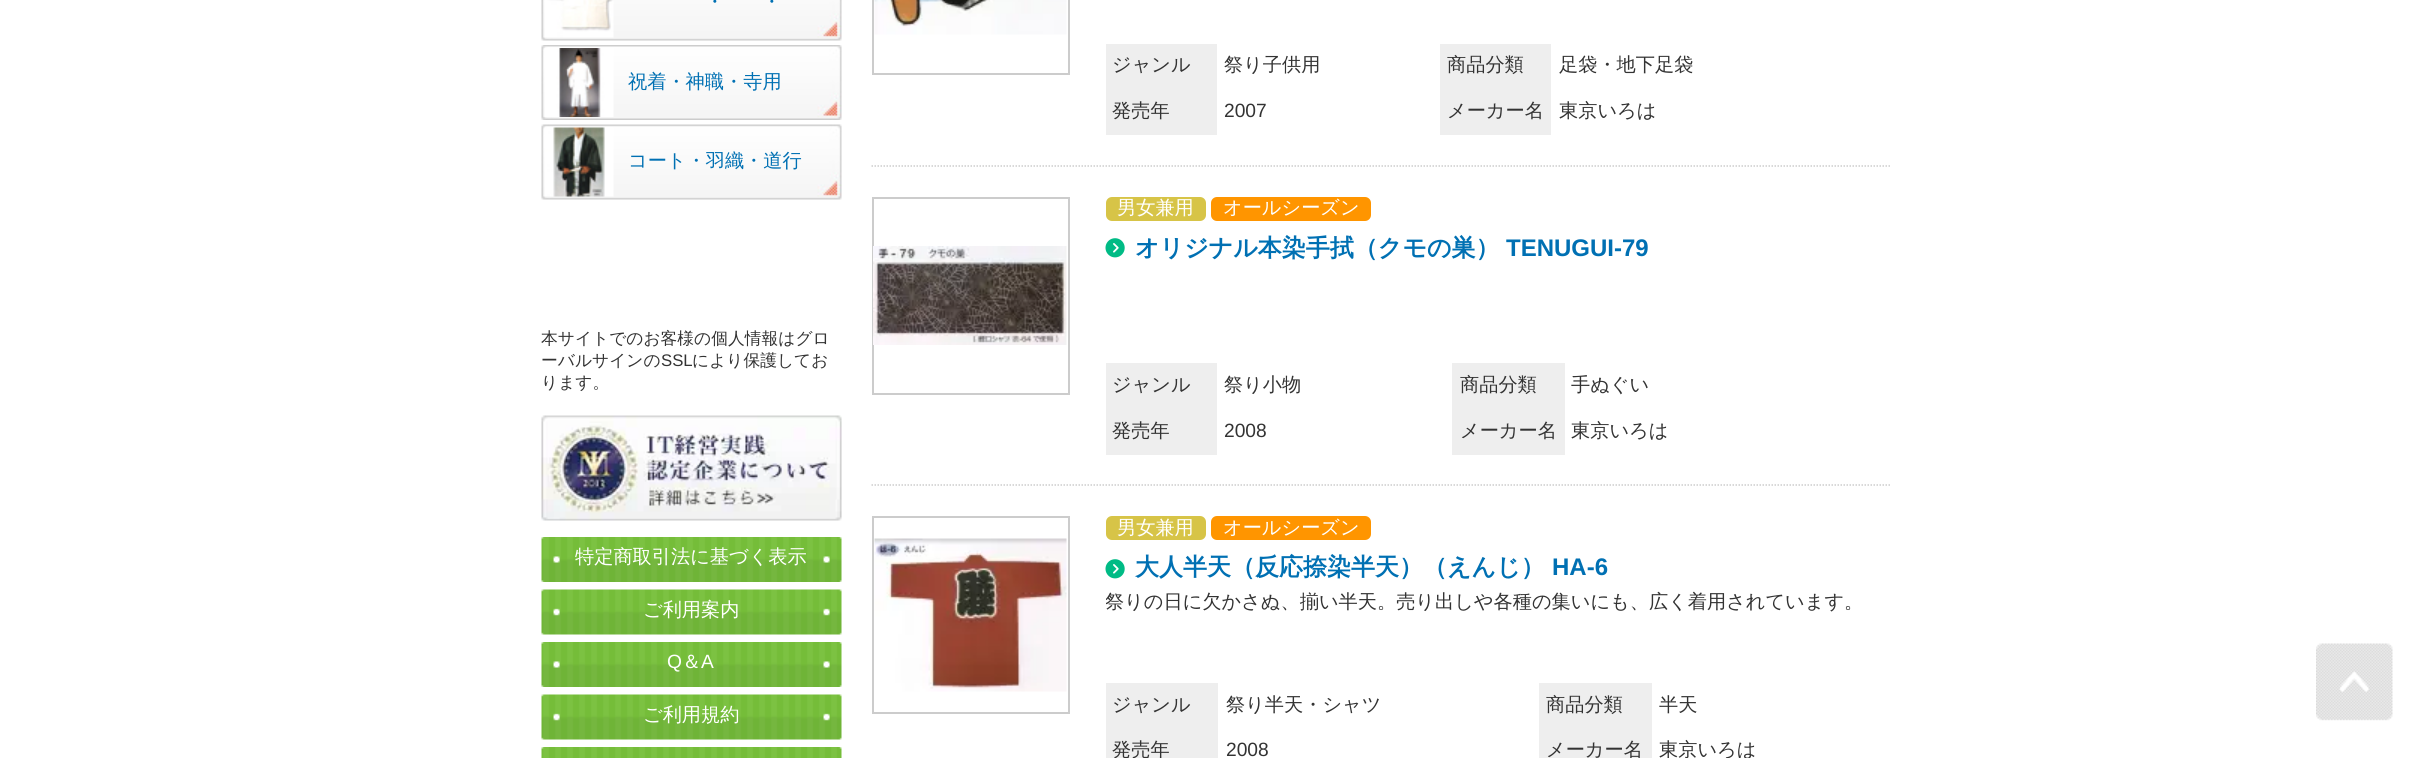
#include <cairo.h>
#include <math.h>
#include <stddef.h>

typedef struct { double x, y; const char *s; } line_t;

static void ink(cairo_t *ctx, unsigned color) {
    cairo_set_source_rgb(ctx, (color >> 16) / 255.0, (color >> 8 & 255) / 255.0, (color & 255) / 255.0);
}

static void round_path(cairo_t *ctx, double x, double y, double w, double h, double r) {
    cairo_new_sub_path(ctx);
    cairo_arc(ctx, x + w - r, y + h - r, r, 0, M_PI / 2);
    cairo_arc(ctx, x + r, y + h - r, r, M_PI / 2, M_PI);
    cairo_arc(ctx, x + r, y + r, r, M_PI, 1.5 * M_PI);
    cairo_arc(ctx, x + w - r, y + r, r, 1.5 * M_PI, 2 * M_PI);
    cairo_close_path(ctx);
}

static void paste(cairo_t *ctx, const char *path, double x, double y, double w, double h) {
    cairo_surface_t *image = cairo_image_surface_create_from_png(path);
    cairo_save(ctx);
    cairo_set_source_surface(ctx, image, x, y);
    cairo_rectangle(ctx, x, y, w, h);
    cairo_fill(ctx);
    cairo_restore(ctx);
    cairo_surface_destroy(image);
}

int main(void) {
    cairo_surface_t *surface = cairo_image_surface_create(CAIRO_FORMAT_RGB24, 2431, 758);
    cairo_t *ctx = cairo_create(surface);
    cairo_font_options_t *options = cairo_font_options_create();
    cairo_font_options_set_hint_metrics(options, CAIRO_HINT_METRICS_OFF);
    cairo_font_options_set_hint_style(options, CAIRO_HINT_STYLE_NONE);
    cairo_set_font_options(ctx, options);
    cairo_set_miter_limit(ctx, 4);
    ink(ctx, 0xFFFFFF);
    cairo_paint(ctx);
    paste(ctx, "media/1.png", 541, 0, 301, 41);
    paste(ctx, "media/2.png", 544, 0, 70, 38);
    cairo_select_font_face(ctx, "WenQuanYi Zen Hei Medium", CAIRO_FONT_SLANT_NORMAL, CAIRO_FONT_WEIGHT_NORMAL);
    cairo_set_font_size(ctx, 19.2);
    ink(ctx, 0x0070B3);
    cairo_move_to(ctx, 705, 8);
    cairo_show_text(ctx, "・");
    cairo_move_to(ctx, 762, 8);
    cairo_show_text(ctx, "・");
    paste(ctx, "media/3.png", 541, 45, 301, 75);
    paste(ctx, "media/4.png", 544, 48, 70, 69);
    cairo_move_to(ctx, 628, 88);
    cairo_show_text(ctx, "祝着・神職・寺用");
    paste(ctx, "media/5.png", 541, 124, 301, 76);
    paste(ctx, "media/6.png", 544, 127, 70, 70);
    cairo_move_to(ctx, 628, 167);
    cairo_show_text(ctx, "コート・羽織・道行");
    cairo_set_font_size(ctx, 16.75);
    ink(ctx, 0x333333);
    cairo_move_to(ctx, 541, 344);
    cairo_show_text(ctx, "本サイトでのお客様の個人情報はグロ");
    cairo_move_to(ctx, 541, 366);
    cairo_show_text(ctx, "ーバルサインの");
    cairo_select_font_face(ctx, "Liberation Sans", CAIRO_FONT_SLANT_NORMAL, CAIRO_FONT_WEIGHT_NORMAL);
    cairo_move_to(ctx, 661, 366);
    cairo_show_text(ctx, "SSL");
    cairo_select_font_face(ctx, "WenQuanYi Zen Hei Medium", CAIRO_FONT_SLANT_NORMAL, CAIRO_FONT_WEIGHT_NORMAL);
    cairo_move_to(ctx, 692, 366);
    cairo_show_text(ctx, "により保護してお");
    cairo_move_to(ctx, 541, 388);
    cairo_show_text(ctx, "ります。");
    paste(ctx, "media/7.png", 541, 415, 301, 106);
    paste(ctx, "media/8.png", 541, 537, 301, 45);
    cairo_set_font_size(ctx, 19.2);
    ink(ctx, 0xFFFFFF);
    cairo_move_to(ctx, 575, 563);
    cairo_show_text(ctx, "特定商取引法に基づく表示");
    paste(ctx, "media/9.png", 541, 589, 301, 46);
    cairo_move_to(ctx, 643, 616);
    cairo_show_text(ctx, "ご利用案内");
    paste(ctx, "media/8.png", 541, 642, 301, 45);
    cairo_select_font_face(ctx, "Liberation Sans", CAIRO_FONT_SLANT_NORMAL, CAIRO_FONT_WEIGHT_NORMAL);
    cairo_move_to(ctx, 667, 668);
    cairo_show_text(ctx, "Q");
    cairo_select_font_face(ctx, "WenQuanYi Zen Hei Medium", CAIRO_FONT_SLANT_NORMAL, CAIRO_FONT_WEIGHT_NORMAL);
    cairo_move_to(ctx, 682, 668);
    cairo_show_text(ctx, "＆");
    cairo_select_font_face(ctx, "Liberation Sans", CAIRO_FONT_SLANT_NORMAL, CAIRO_FONT_WEIGHT_NORMAL);
    cairo_move_to(ctx, 701, 668);
    cairo_show_text(ctx, "A");
    paste(ctx, "media/9.png", 541, 694, 301, 46);
    cairo_select_font_face(ctx, "WenQuanYi Zen Hei Medium", CAIRO_FONT_SLANT_NORMAL, CAIRO_FONT_WEIGHT_NORMAL);
    cairo_move_to(ctx, 643, 721);
    cairo_show_text(ctx, "ご利用規約");
    paste(ctx, "media/10.png", 541, 747, 301, 11);
    cairo_rectangle(ctx, 873, -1, 196, 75);
    ink(ctx, 0xCCCCCC);
    cairo_stroke(ctx);
    paste(ctx, "media/11.png", 874, 0, 193, 35);
    ink(ctx, 0xEEEEEE);
    cairo_rectangle(ctx, 1106, 44, 111, 91);
    cairo_fill(ctx);
    ink(ctx, 0x333333);
    cairo_move_to(ctx, 1112, 71);
    cairo_show_text(ctx, "ジャンル");
    cairo_move_to(ctx, 1224, 71);
    cairo_show_text(ctx, "祭り子供用");
    ink(ctx, 0xEEEEEE);
    cairo_rectangle(ctx, 1440, 44, 111, 91);
    cairo_fill(ctx);
    ink(ctx, 0x333333);
    {
        static const line_t items[] = {
            {1447, 71, "商品分類"},
            {1559, 71, "足袋・地下足袋"},
            {1112, 117, "発売年"},
        };
        for (size_t i = 0; i < sizeof items / sizeof *items; i++) {
            cairo_move_to(ctx, items[i].x, items[i].y);
            cairo_show_text(ctx, items[i].s);
        }
    }
    cairo_select_font_face(ctx, "Liberation Sans", CAIRO_FONT_SLANT_NORMAL, CAIRO_FONT_WEIGHT_NORMAL);
    cairo_move_to(ctx, 1224, 117);
    cairo_show_text(ctx, "2007");
    cairo_select_font_face(ctx, "WenQuanYi Zen Hei Medium", CAIRO_FONT_SLANT_NORMAL, CAIRO_FONT_WEIGHT_NORMAL);
    cairo_move_to(ctx, 1447, 117);
    cairo_show_text(ctx, "メーカー名");
    cairo_move_to(ctx, 1559, 117);
    cairo_show_text(ctx, "東京いろは");
    cairo_new_path(ctx);
    cairo_move_to(ctx, 871.5, 166);
    cairo_line_to(ctx, 1891.5, 166);
    ink(ctx, 0xCCCCCC);
    cairo_set_line_width(ctx, 1.5);
    cairo_set_dash(ctx, (double[]){1.5, 1.5}, 2, 0);
    cairo_stroke(ctx);
    cairo_rectangle(ctx, 873, 198, 196, 196);
    cairo_set_line_width(ctx, 2);
    cairo_set_dash(ctx, NULL, 0, 0);
    cairo_stroke(ctx);
    paste(ctx, "media/12.png", 873, 246, 194, 99);
    ink(ctx, 0xD7C447);
    round_path(ctx, 1106, 197, 100, 24, 6);
    cairo_fill(ctx);
    ink(ctx, 0xFFFFFF);
    cairo_move_to(ctx, 1117, 214);
    cairo_show_text(ctx, "男女兼用");
    ink(ctx, 0xFF9500);
    round_path(ctx, 1211, 197, 160, 24, 6);
    cairo_fill(ctx);
    ink(ctx, 0xFFFFFF);
    cairo_move_to(ctx, 1223, 214);
    cairo_show_text(ctx, "オールシーズン");
    paste(ctx, "media/13.png", 1105, 238, 20, 20);
    cairo_select_font_face(ctx, "WenQuanYi Zen Hei", CAIRO_FONT_SLANT_NORMAL, CAIRO_FONT_WEIGHT_BOLD);
    cairo_set_font_size(ctx, 24);
    ink(ctx, 0x0070B3);
    cairo_move_to(ctx, 1135, 256);
    cairo_show_text(ctx, "オリジナル本染手拭（クモの巣）");
    cairo_select_font_face(ctx, "Liberation Sans", CAIRO_FONT_SLANT_NORMAL, CAIRO_FONT_WEIGHT_BOLD);
    cairo_move_to(ctx, 1506, 256);
    cairo_show_text(ctx, "TENUGUI-79");
    ink(ctx, 0xEEEEEE);
    cairo_rectangle(ctx, 1106, 363, 111, 92);
    cairo_fill(ctx);
    cairo_select_font_face(ctx, "WenQuanYi Zen Hei Medium", CAIRO_FONT_SLANT_NORMAL, CAIRO_FONT_WEIGHT_NORMAL);
    cairo_set_font_size(ctx, 19.2);
    ink(ctx, 0x333333);
    cairo_move_to(ctx, 1112, 391);
    cairo_show_text(ctx, "ジャンル");
    cairo_move_to(ctx, 1224, 391);
    cairo_show_text(ctx, "祭り小物");
    ink(ctx, 0xEEEEEE);
    cairo_rectangle(ctx, 1452, 363, 113, 92);
    cairo_fill(ctx);
    ink(ctx, 0x333333);
    {
        static const line_t items[] = {
            {1460, 391, "商品分類"},
            {1571, 391, "手ぬぐい"},
            {1112, 437, "発売年"},
        };
        for (size_t i = 0; i < sizeof items / sizeof *items; i++) {
            cairo_move_to(ctx, items[i].x, items[i].y);
            cairo_show_text(ctx, items[i].s);
        }
    }
    cairo_select_font_face(ctx, "Liberation Sans", CAIRO_FONT_SLANT_NORMAL, CAIRO_FONT_WEIGHT_NORMAL);
    cairo_move_to(ctx, 1224, 437);
    cairo_show_text(ctx, "2008");
    cairo_select_font_face(ctx, "WenQuanYi Zen Hei Medium", CAIRO_FONT_SLANT_NORMAL, CAIRO_FONT_WEIGHT_NORMAL);
    cairo_move_to(ctx, 1460, 437);
    cairo_show_text(ctx, "メーカー名");
    cairo_move_to(ctx, 1571, 437);
    cairo_show_text(ctx, "東京いろは");
    cairo_new_path(ctx);
    cairo_move_to(ctx, 871.5, 485);
    cairo_line_to(ctx, 1891.5, 485);
    ink(ctx, 0xCCCCCC);
    cairo_set_line_width(ctx, 1.5);
    cairo_set_dash(ctx, (double[]){1.5, 1.5}, 2, 0);
    cairo_stroke(ctx);
    cairo_rectangle(ctx, 873, 517, 196, 196);
    cairo_set_line_width(ctx, 2);
    cairo_set_dash(ctx, NULL, 0, 0);
    cairo_stroke(ctx);
    paste(ctx, "media/14.png", 874, 538, 193, 154);
    ink(ctx, 0xD7C447);
    round_path(ctx, 1106, 516, 100, 24, 6);
    cairo_fill(ctx);
    ink(ctx, 0xFFFFFF);
    cairo_move_to(ctx, 1117, 534);
    cairo_show_text(ctx, "男女兼用");
    ink(ctx, 0xFF9500);
    round_path(ctx, 1211, 516, 160, 24, 6);
    cairo_fill(ctx);
    ink(ctx, 0xFFFFFF);
    cairo_move_to(ctx, 1223, 534);
    cairo_show_text(ctx, "オールシーズン");
    paste(ctx, "media/13.png", 1105, 559, 20, 20);
    cairo_select_font_face(ctx, "WenQuanYi Zen Hei", CAIRO_FONT_SLANT_NORMAL, CAIRO_FONT_WEIGHT_BOLD);
    cairo_set_font_size(ctx, 24);
    ink(ctx, 0x0070B3);
    cairo_move_to(ctx, 1135, 575);
    cairo_show_text(ctx, "大人半天（反応捺染半天）（えんじ）");
    cairo_select_font_face(ctx, "Liberation Sans", CAIRO_FONT_SLANT_NORMAL, CAIRO_FONT_WEIGHT_BOLD);
    cairo_move_to(ctx, 1552, 575);
    cairo_show_text(ctx, "HA-6");
    cairo_save(ctx);
    cairo_rectangle(ctx, 1106, 587, 757, 87);
    cairo_clip(ctx);
    cairo_select_font_face(ctx, "WenQuanYi Zen Hei Medium", CAIRO_FONT_SLANT_NORMAL, CAIRO_FONT_WEIGHT_NORMAL);
    cairo_set_font_size(ctx, 19.2);
    ink(ctx, 0x333333);
    cairo_move_to(ctx, 1105, 608);
    cairo_show_text(ctx, "祭りの日に欠かさぬ、揃い半天。売り出しや各種の集いにも、広く着用されています。");
    cairo_restore(ctx);
    ink(ctx, 0xEEEEEE);
    cairo_rectangle(ctx, 1106, 683, 112, 75);
    cairo_fill(ctx);
    cairo_select_font_face(ctx, "WenQuanYi Zen Hei Medium", CAIRO_FONT_SLANT_NORMAL, CAIRO_FONT_WEIGHT_NORMAL);
    cairo_set_font_size(ctx, 19.2);
    ink(ctx, 0x333333);
    cairo_move_to(ctx, 1112, 711);
    cairo_show_text(ctx, "ジャンル");
    cairo_move_to(ctx, 1226, 711);
    cairo_show_text(ctx, "祭り半天・シャツ");
    ink(ctx, 0xEEEEEE);
    cairo_rectangle(ctx, 1539, 683, 113, 75);
    cairo_fill(ctx);
    ink(ctx, 0x333333);
    {
        static const line_t items[] = {
            {1546, 711, "商品分類"},
            {1659, 711, "半天"},
            {1112, 756, "発売年"},
        };
        for (size_t i = 0; i < sizeof items / sizeof *items; i++) {
            cairo_move_to(ctx, items[i].x, items[i].y);
            cairo_show_text(ctx, items[i].s);
        }
    }
    cairo_select_font_face(ctx, "Liberation Sans", CAIRO_FONT_SLANT_NORMAL, CAIRO_FONT_WEIGHT_NORMAL);
    cairo_move_to(ctx, 1226, 756);
    cairo_show_text(ctx, "2008");
    cairo_select_font_face(ctx, "WenQuanYi Zen Hei Medium", CAIRO_FONT_SLANT_NORMAL, CAIRO_FONT_WEIGHT_NORMAL);
    cairo_move_to(ctx, 1546, 756);
    cairo_show_text(ctx, "メーカー名");
    cairo_move_to(ctx, 1659, 756);
    cairo_show_text(ctx, "東京いろは");
    paste(ctx, "media/15.png", 2316, 643, 77, 78);
    cairo_surface_write_to_png(surface, "image.png");
    cairo_font_options_destroy(options);
    cairo_destroy(ctx);
    cairo_surface_destroy(surface);
    return 0;
}
